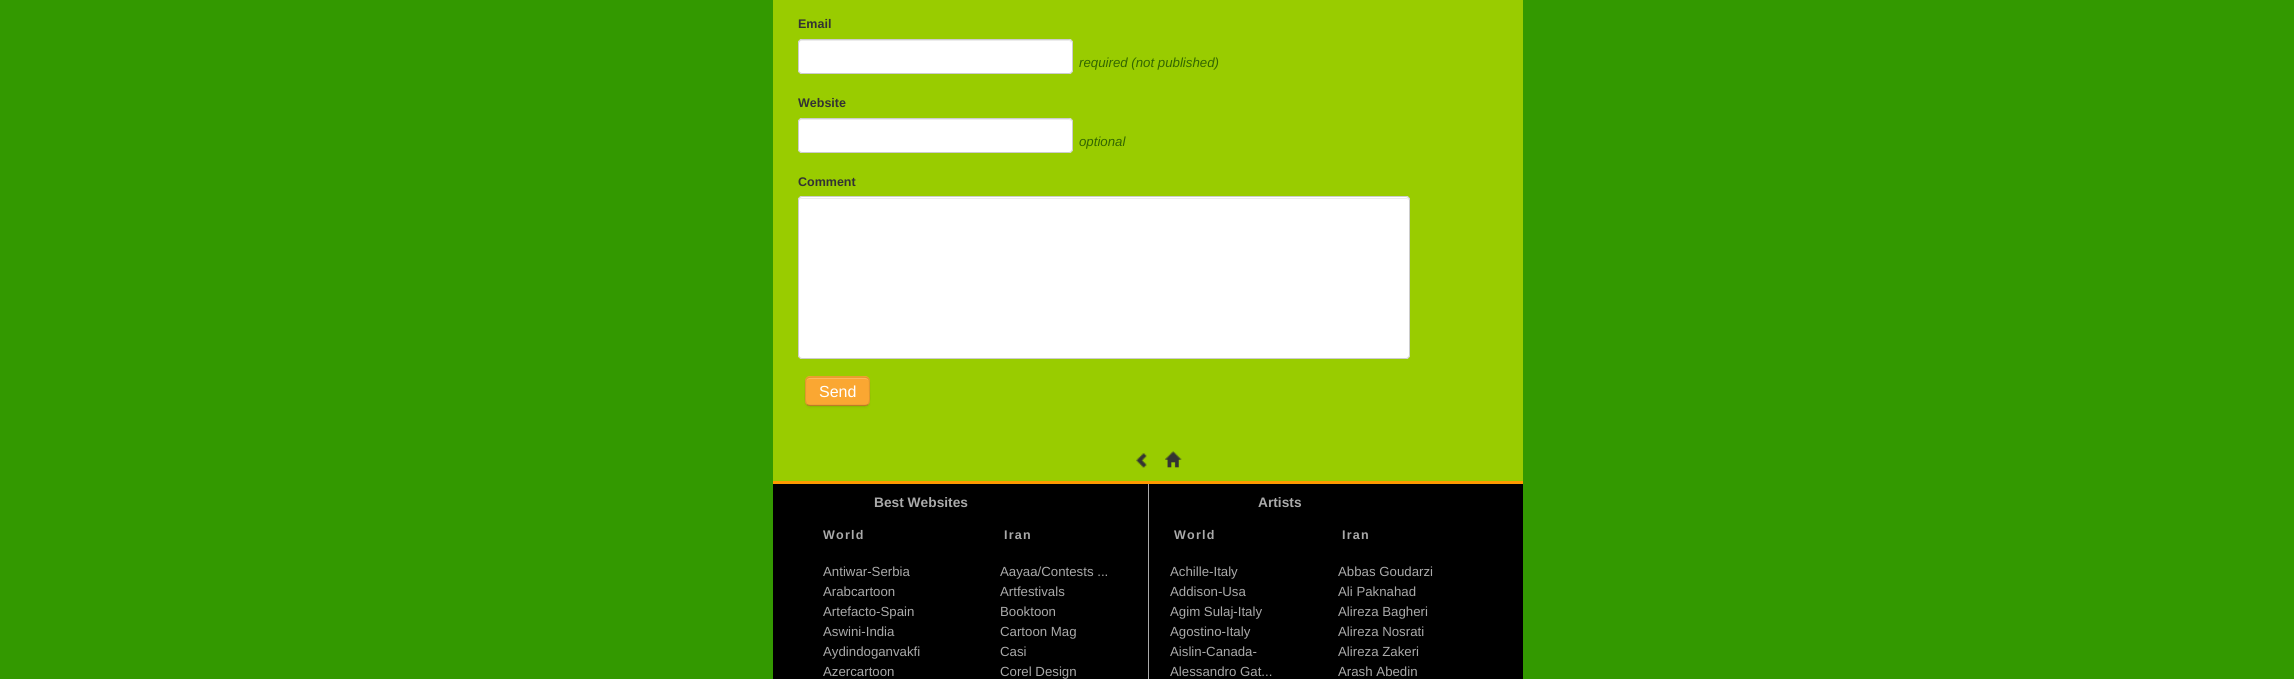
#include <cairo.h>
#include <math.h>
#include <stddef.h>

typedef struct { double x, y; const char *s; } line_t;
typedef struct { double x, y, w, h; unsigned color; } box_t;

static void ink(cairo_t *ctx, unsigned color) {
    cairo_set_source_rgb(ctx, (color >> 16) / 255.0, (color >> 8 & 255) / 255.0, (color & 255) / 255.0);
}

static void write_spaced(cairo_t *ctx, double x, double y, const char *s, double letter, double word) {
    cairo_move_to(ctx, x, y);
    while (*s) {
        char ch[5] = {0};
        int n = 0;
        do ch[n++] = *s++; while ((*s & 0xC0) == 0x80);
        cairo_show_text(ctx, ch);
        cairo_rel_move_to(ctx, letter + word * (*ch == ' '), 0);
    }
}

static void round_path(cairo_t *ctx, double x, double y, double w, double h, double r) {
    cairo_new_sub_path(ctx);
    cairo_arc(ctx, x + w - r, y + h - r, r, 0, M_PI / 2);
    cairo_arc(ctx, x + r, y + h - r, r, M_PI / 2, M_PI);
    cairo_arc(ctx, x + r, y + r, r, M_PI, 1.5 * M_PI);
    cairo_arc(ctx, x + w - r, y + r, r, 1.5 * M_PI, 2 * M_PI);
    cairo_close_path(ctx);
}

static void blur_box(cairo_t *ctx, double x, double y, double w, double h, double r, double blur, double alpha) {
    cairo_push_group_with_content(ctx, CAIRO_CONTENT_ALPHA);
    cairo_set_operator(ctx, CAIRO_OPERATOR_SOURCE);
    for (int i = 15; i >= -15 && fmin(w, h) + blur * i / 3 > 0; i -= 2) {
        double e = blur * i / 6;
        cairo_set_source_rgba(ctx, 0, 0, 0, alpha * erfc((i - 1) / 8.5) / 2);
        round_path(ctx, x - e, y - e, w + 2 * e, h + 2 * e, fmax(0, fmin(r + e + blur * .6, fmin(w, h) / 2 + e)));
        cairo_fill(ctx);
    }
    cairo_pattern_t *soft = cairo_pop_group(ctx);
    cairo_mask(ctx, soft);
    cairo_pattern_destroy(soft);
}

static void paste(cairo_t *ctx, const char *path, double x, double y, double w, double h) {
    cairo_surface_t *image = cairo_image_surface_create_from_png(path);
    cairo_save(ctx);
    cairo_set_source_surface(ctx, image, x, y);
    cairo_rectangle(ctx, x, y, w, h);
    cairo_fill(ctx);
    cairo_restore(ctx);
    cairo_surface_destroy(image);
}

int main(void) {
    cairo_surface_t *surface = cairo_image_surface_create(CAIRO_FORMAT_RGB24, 2294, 679);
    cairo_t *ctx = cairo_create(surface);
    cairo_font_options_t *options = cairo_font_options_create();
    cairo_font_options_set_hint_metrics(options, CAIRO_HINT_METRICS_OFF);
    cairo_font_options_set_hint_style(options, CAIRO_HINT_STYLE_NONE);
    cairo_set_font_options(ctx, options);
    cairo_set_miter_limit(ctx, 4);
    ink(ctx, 0x339900);
    cairo_paint(ctx);
    ink(ctx, 0x99CC00);
    cairo_rectangle(ctx, 773, 0, 750, 481);
    cairo_fill(ctx);
    cairo_select_font_face(ctx, "Liberation Sans", CAIRO_FONT_SLANT_NORMAL, CAIRO_FONT_WEIGHT_BOLD);
    cairo_set_font_size(ctx, 12.5);
    ink(ctx, 0x333333);
    cairo_move_to(ctx, 798, 28);
    cairo_show_text(ctx, "Email");
    ink(ctx, 0xFFFFFF);
    round_path(ctx, 798, 39, 275, 35, 4);
    cairo_fill(ctx);
    ink(ctx, 0xECECEC);
    cairo_new_path(ctx);
    cairo_move_to(ctx, 801, 41);
    cairo_line_to(ctx, 1069, 41);
    cairo_curve_to(ctx, 1070, 41, 1071, 42, 1071, 44);
    cairo_line_to(ctx, 1071, 42);
    cairo_curve_to(ctx, 1071, 41, 1070, 40, 1068, 40);
    cairo_line_to(ctx, 802, 40);
    cairo_curve_to(ctx, 800, 40, 799, 41, 799, 42);
    cairo_line_to(ctx, 799, 44);
    cairo_curve_to(ctx, 799, 42, 800, 41, 801, 41);
    cairo_close_path(ctx);
    cairo_fill(ctx);
    round_path(ctx, 798.5, 39.5, 274, 34, 3.5);
    ink(ctx, 0xCCCCCC);
    cairo_set_line_width(ctx, 1);
    cairo_stroke(ctx);
    cairo_select_font_face(ctx, "Liberation Sans", CAIRO_FONT_SLANT_ITALIC, CAIRO_FONT_WEIGHT_NORMAL);
    cairo_set_font_size(ctx, 13.25);
    ink(ctx, 0x336600);
    cairo_move_to(ctx, 1079, 67);
    cairo_show_text(ctx, "required (not published)");
    cairo_select_font_face(ctx, "Liberation Sans", CAIRO_FONT_SLANT_NORMAL, CAIRO_FONT_WEIGHT_BOLD);
    cairo_set_font_size(ctx, 12.5);
    ink(ctx, 0x333333);
    cairo_move_to(ctx, 798, 107);
    cairo_show_text(ctx, "Website");
    ink(ctx, 0xFFFFFF);
    round_path(ctx, 798, 118, 275, 35, 4);
    cairo_fill(ctx);
    ink(ctx, 0xECECEC);
    cairo_new_path(ctx);
    cairo_move_to(ctx, 801, 120);
    cairo_line_to(ctx, 1069, 120);
    cairo_curve_to(ctx, 1070, 120, 1071, 121, 1071, 122);
    cairo_curve_to(ctx, 1071, 120, 1070, 119, 1068, 119);
    cairo_line_to(ctx, 802, 119);
    cairo_curve_to(ctx, 800, 119, 799, 120, 799, 122);
    cairo_curve_to(ctx, 799, 121, 800, 120, 801, 120);
    cairo_close_path(ctx);
    cairo_fill(ctx);
    round_path(ctx, 798.5, 118.5, 274, 34, 3.5);
    ink(ctx, 0xCCCCCC);
    cairo_stroke(ctx);
    cairo_select_font_face(ctx, "Liberation Sans", CAIRO_FONT_SLANT_ITALIC, CAIRO_FONT_WEIGHT_NORMAL);
    cairo_set_font_size(ctx, 13.25);
    ink(ctx, 0x336600);
    cairo_move_to(ctx, 1079, 146);
    cairo_show_text(ctx, "optional");
    cairo_select_font_face(ctx, "Liberation Sans", CAIRO_FONT_SLANT_NORMAL, CAIRO_FONT_WEIGHT_BOLD);
    cairo_set_font_size(ctx, 12.5);
    ink(ctx, 0x333333);
    cairo_move_to(ctx, 798, 186);
    cairo_show_text(ctx, "Comment");
    ink(ctx, 0xFFFFFF);
    round_path(ctx, 798, 196, 612, 163, 4);
    cairo_fill(ctx);
    ink(ctx, 0xECECEC);
    cairo_new_path(ctx);
    cairo_move_to(ctx, 801, 199);
    cairo_line_to(ctx, 1406, 199);
    cairo_curve_to(ctx, 1408, 199, 1409, 200, 1409, 201);
    cairo_curve_to(ctx, 1409, 199, 1408, 198, 1406, 198);
    cairo_line_to(ctx, 802, 198);
    cairo_curve_to(ctx, 800, 198, 799, 199, 799, 201);
    cairo_curve_to(ctx, 799, 200, 800, 199, 801, 199);
    cairo_close_path(ctx);
    cairo_fill(ctx);
    round_path(ctx, 798.5, 196.5, 611, 162, 3.5);
    ink(ctx, 0xCCCCCC);
    cairo_stroke(ctx);
    ink(ctx, 0x000000);
    blur_box(ctx, 805, 378, 65, 30, 5, 1, 0.05);
    ink(ctx, 0xFAA732);
    round_path(ctx, 805, 376, 65, 30, 5);
    cairo_fill(ctx);
    ink(ctx, 0xFBB95B);
    cairo_new_path(ctx);
    cairo_move_to(ctx, 810, 379);
    cairo_line_to(ctx, 865, 379);
    cairo_curve_to(ctx, 867, 379, 869, 380, 869, 382);
    cairo_curve_to(ctx, 869, 380, 867, 378, 865, 378);
    cairo_line_to(ctx, 810, 378);
    cairo_curve_to(ctx, 808, 378, 806, 380, 806, 382);
    cairo_curve_to(ctx, 806, 380, 808, 379, 810, 379);
    cairo_close_path(ctx);
    cairo_fill(ctx);
    cairo_new_path(ctx);
    cairo_move_to(ctx, 868, 404.5);
    cairo_curve_to(ctx, 867.5, 405, 866, 405.5, 865, 405.5);
    cairo_line_to(ctx, 810, 405.5);
    cairo_curve_to(ctx, 809, 405.5, 807.5, 405, 807, 404.5);
    cairo_set_source_rgba(ctx, 0, 0, 0, 0.25);
    cairo_set_line_width(ctx, 1.2);
    cairo_stroke(ctx);
    cairo_new_path(ctx);
    cairo_move_to(ctx, 807, 404.5);
    cairo_curve_to(ctx, 804.5, 402, 805.5, 394.5, 805.5, 391);
    cairo_curve_to(ctx, 805.5, 376.5, 804, 377, 819, 377);
    cairo_line_to(ctx, 856, 377);
    cairo_curve_to(ctx, 871, 377, 869.5, 376.5, 869.5, 391);
    cairo_curve_to(ctx, 869.5, 394.5, 870.5, 402, 868, 404.5);
    cairo_set_source_rgba(ctx, 0, 0, 0, 0.1);
    cairo_stroke(ctx);
    cairo_select_font_face(ctx, "Liberation Sans", CAIRO_FONT_SLANT_NORMAL, CAIRO_FONT_WEIGHT_NORMAL);
    cairo_set_font_size(ctx, 16);
    ink(ctx, 0xFFFFFF);
    cairo_move_to(ctx, 819, 397);
    cairo_show_text(ctx, "Send");
    paste(ctx, "media/1.png", 1136, 453, 11, 15);
    paste(ctx, "media/2.png", 1165, 451, 17, 17);
    {
        static const box_t items[] = {
            {773, 484, 750, 195, 0x000000},
            {773, 481, 750, 3, 0xFF9900},
            {1148, 484, 1, 195, 0xAAAAAA},
        };
        for (size_t i = 0; i < sizeof items / sizeof *items; i++) {
            ink(ctx, items[i].color);
            cairo_rectangle(ctx, items[i].x, items[i].y, items[i].w, items[i].h);
            cairo_fill(ctx);
        }
    }
    cairo_select_font_face(ctx, "Liberation Sans", CAIRO_FONT_SLANT_NORMAL, CAIRO_FONT_WEIGHT_BOLD);
    cairo_set_font_size(ctx, 13.75);
    cairo_move_to(ctx, 874, 507);
    cairo_show_text(ctx, "Best Websites");
    cairo_set_font_size(ctx, 12.5);
    write_spaced(ctx, 823, 539, "World", 1.25, 0);
    cairo_select_font_face(ctx, "Liberation Sans", CAIRO_FONT_SLANT_NORMAL, CAIRO_FONT_WEIGHT_NORMAL);
    cairo_set_font_size(ctx, 13.25);
    {
        static const line_t items[] = {
            {823, 576, "Antiwar-Serbia"},
            {823, 596, "Arabcartoon"},
            {823, 616, "Artefacto-Spain"},
            {823, 636, "Aswini-India"},
            {823, 656, "Aydindoganvakfi"},
            {823, 676, "Azercartoon"},
        };
        for (size_t i = 0; i < sizeof items / sizeof *items; i++) {
            cairo_move_to(ctx, items[i].x, items[i].y);
            cairo_show_text(ctx, items[i].s);
        }
    }
    cairo_select_font_face(ctx, "Liberation Sans", CAIRO_FONT_SLANT_NORMAL, CAIRO_FONT_WEIGHT_BOLD);
    cairo_set_font_size(ctx, 12.5);
    write_spaced(ctx, 1004, 539, "Iran", 1.25, 0);
    cairo_select_font_face(ctx, "Liberation Sans", CAIRO_FONT_SLANT_NORMAL, CAIRO_FONT_WEIGHT_NORMAL);
    cairo_set_font_size(ctx, 13.25);
    {
        static const line_t items[] = {
            {1000, 576, "Aayaa/Contests ..."},
            {1000, 596, "Artfestivals"},
            {1000, 616, "Booktoon"},
            {1000, 636, "Cartoon Mag"},
            {1000, 656, "Casi"},
            {1000, 676, "Corel Design"},
        };
        for (size_t i = 0; i < sizeof items / sizeof *items; i++) {
            cairo_move_to(ctx, items[i].x, items[i].y);
            cairo_show_text(ctx, items[i].s);
        }
    }
    cairo_select_font_face(ctx, "Liberation Sans", CAIRO_FONT_SLANT_NORMAL, CAIRO_FONT_WEIGHT_BOLD);
    cairo_set_font_size(ctx, 13.75);
    cairo_move_to(ctx, 1258, 507);
    cairo_show_text(ctx, "Artists");
    cairo_set_font_size(ctx, 12.5);
    write_spaced(ctx, 1174, 539, "World", 1.25, 0);
    cairo_select_font_face(ctx, "Liberation Sans", CAIRO_FONT_SLANT_NORMAL, CAIRO_FONT_WEIGHT_NORMAL);
    cairo_set_font_size(ctx, 13.25);
    {
        static const line_t items[] = {
            {1170, 576, "Achille-Italy"},
            {1170, 596, "Addison-Usa"},
            {1170, 616, "Agim Sulaj-Italy"},
            {1170, 636, "Agostino-Italy"},
            {1170, 656, "Aislin-Canada-"},
            {1170, 676, "Alessandro Gat..."},
        };
        for (size_t i = 0; i < sizeof items / sizeof *items; i++) {
            cairo_move_to(ctx, items[i].x, items[i].y);
            cairo_show_text(ctx, items[i].s);
        }
    }
    cairo_select_font_face(ctx, "Liberation Sans", CAIRO_FONT_SLANT_NORMAL, CAIRO_FONT_WEIGHT_BOLD);
    cairo_set_font_size(ctx, 12.5);
    write_spaced(ctx, 1342, 539, "Iran", 1.25, 0);
    cairo_select_font_face(ctx, "Liberation Sans", CAIRO_FONT_SLANT_NORMAL, CAIRO_FONT_WEIGHT_NORMAL);
    cairo_set_font_size(ctx, 13.25);
    {
        static const line_t items[] = {
            {1338, 576, "Abbas Goudarzi"},
            {1338, 596, "Ali Paknahad"},
            {1338, 616, "Alireza Bagheri"},
            {1338, 636, "Alireza Nosrati"},
            {1338, 656, "Alireza Zakeri"},
            {1338, 676, "Arash Abedin"},
        };
        for (size_t i = 0; i < sizeof items / sizeof *items; i++) {
            cairo_move_to(ctx, items[i].x, items[i].y);
            cairo_show_text(ctx, items[i].s);
        }
    }
    cairo_surface_write_to_png(surface, "image.png");
    cairo_font_options_destroy(options);
    cairo_destroy(ctx);
    cairo_surface_destroy(surface);
    return 0;
}
